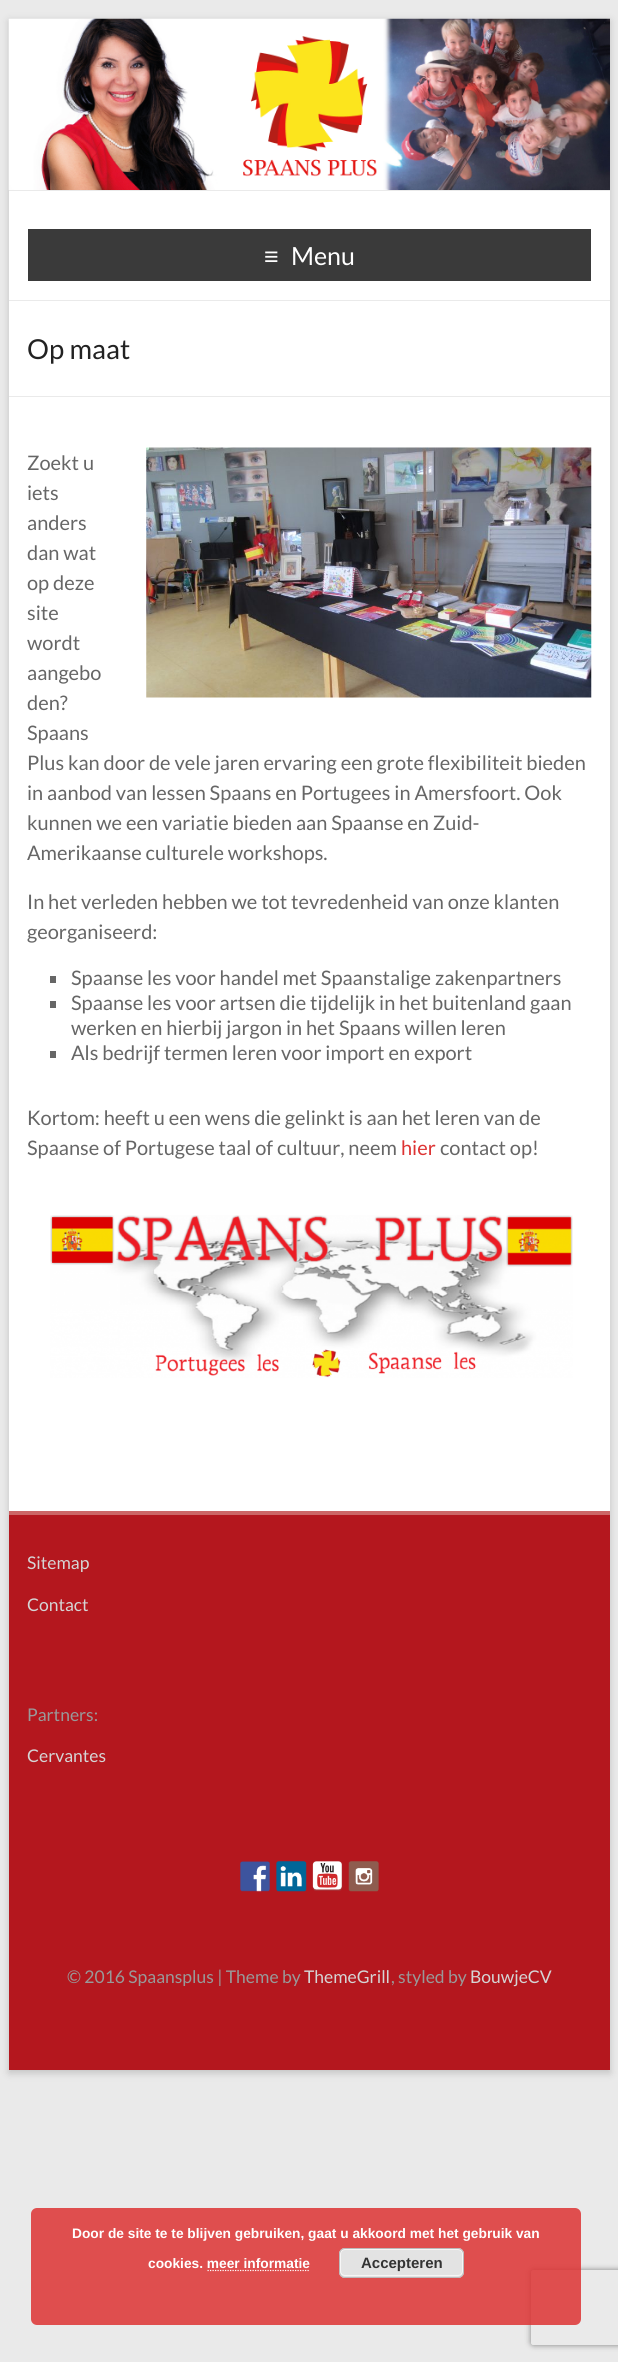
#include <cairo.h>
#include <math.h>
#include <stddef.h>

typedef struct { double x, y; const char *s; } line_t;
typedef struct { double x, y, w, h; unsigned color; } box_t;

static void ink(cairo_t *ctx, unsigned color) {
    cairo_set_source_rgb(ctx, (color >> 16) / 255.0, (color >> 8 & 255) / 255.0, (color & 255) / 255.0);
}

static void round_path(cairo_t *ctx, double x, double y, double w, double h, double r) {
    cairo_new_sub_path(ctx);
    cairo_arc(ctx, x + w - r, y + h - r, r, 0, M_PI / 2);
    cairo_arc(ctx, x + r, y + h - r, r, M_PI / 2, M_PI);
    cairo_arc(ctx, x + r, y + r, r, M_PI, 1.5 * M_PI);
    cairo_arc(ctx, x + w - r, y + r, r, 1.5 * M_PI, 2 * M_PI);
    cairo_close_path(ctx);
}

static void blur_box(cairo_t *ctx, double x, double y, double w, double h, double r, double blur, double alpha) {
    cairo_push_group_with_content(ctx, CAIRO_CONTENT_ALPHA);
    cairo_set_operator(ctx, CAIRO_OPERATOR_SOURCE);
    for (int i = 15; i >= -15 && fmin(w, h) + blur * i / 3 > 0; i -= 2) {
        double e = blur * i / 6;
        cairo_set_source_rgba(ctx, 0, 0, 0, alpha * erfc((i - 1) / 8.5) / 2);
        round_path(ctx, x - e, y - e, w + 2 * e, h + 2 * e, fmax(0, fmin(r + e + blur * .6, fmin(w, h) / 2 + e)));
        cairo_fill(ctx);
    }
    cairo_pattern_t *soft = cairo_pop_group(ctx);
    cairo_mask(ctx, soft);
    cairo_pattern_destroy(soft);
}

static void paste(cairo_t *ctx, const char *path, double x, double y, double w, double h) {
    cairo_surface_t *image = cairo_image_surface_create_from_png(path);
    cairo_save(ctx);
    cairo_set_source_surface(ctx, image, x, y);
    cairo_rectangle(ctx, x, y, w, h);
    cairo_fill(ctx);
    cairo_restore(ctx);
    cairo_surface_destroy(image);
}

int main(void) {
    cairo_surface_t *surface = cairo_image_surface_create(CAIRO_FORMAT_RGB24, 618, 2362);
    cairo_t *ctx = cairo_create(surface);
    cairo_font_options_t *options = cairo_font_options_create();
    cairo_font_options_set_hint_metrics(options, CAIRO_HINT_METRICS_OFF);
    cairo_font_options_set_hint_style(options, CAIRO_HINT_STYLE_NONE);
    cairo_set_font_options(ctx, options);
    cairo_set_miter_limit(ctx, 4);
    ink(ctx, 0xEAEAEA);
    cairo_paint(ctx);
    ink(ctx, 0x646464);
    blur_box(ctx, 9, 21, 601, 2052, 0, 4, 0.3);
    ink(ctx, 0xFFFFFF);
    cairo_rectangle(ctx, 9, 191, 601, 1320);
    cairo_fill(ctx);
    paste(ctx, "media/1.png", 8, 18, 602, 172);
    {
        static const box_t items[] = {
            {9, 190, 601, 1, 0xEAEAEA},
            {9, 300, 601, 1, 0xEAEAEA},
            {28, 229, 563, 52, 0x3A3A3A},
        };
        for (size_t i = 0; i < sizeof items / sizeof *items; i++) {
            ink(ctx, items[i].color);
            cairo_rectangle(ctx, items[i].x, items[i].y, items[i].w, items[i].h);
            cairo_fill(ctx);
        }
    }
    cairo_select_font_face(ctx, "Liberation Sans", CAIRO_FONT_SLANT_NORMAL, CAIRO_FONT_WEIGHT_NORMAL);
    cairo_set_font_size(ctx, 25);
    ink(ctx, 0xFFFFFF);
    cairo_move_to(ctx, 264, 265);
    cairo_show_text(ctx, "≡");
    cairo_select_font_face(ctx, "Lato", CAIRO_FONT_SLANT_NORMAL, CAIRO_FONT_WEIGHT_NORMAL);
    cairo_move_to(ctx, 291, 265);
    cairo_show_text(ctx, "Menu");
    ink(ctx, 0xEAEAEA);
    cairo_rectangle(ctx, 9, 396, 601, 1);
    cairo_fill(ctx);
    cairo_set_font_size(ctx, 27.5);
    ink(ctx, 0x222222);
    cairo_move_to(ctx, 27, 359);
    cairo_show_text(ctx, "Op maat");
    cairo_set_font_size(ctx, 20);
    ink(ctx, 0x666666);
    cairo_move_to(ctx, 27, 470);
    cairo_show_text(ctx, "Zoekt u");
    paste(ctx, "media/2.png", 146, 447, 446, 251);
    {
        static const line_t items[] = {
            {27, 500, "iets"},
            {27, 530, "anders"},
            {27, 560, "dan wat"},
            {27, 590, "op deze"},
            {27, 620, "site"},
            {27, 650, "wordt"},
            {27, 680, "aangebo"},
            {27, 710, "den?"},
            {27, 740, "Spaans"},
            {27, 770, "Plus kan door de vele jaren ervaring een grote flexibiliteit bieden"},
            {27, 800, "in aanbod van lessen Spaans en Portugees in Amersfoort. Ook"},
            {27, 830, "kunnen we een variatie bieden aan Spaanse en Zuid-"},
            {27, 860, "Amerikaanse culturele workshops."},
            {27, 909, "In het verleden hebben we tot tevredenheid van onze klanten"},
            {27, 939, "georganiseerd:"},
        };
        for (size_t i = 0; i < sizeof items / sizeof *items; i++) {
            cairo_move_to(ctx, items[i].x, items[i].y);
            cairo_show_text(ctx, items[i].s);
        }
    }
    cairo_rectangle(ctx, 50, 976, 6, 7);
    cairo_fill(ctx);
    cairo_move_to(ctx, 71, 985);
    cairo_show_text(ctx, "Spaanse les voor handel met Spaanstalige zakenpartners");
    cairo_rectangle(ctx, 50, 1001, 6, 7);
    cairo_fill(ctx);
    cairo_move_to(ctx, 71, 1010);
    cairo_show_text(ctx, "Spaanse les voor artsen die tijdelijk in het buitenland gaan");
    cairo_move_to(ctx, 71, 1035);
    cairo_show_text(ctx, "werken en hierbij jargon in het Spaans willen leren");
    cairo_rectangle(ctx, 50, 1051, 6, 7);
    cairo_fill(ctx);
    {
        static const line_t items[] = {
            {71, 1060, "Als bedrijf termen leren voor import en export"},
            {27, 1125, "Kortom: heeft u een wens die gelinkt is aan het leren van de"},
            {27, 1155, "Spaanse of Portugese taal of cultuur, neem"},
        };
        for (size_t i = 0; i < sizeof items / sizeof *items; i++) {
            cairo_move_to(ctx, items[i].x, items[i].y);
            cairo_show_text(ctx, items[i].s);
        }
    }
    ink(ctx, 0xDD3333);
    cairo_move_to(ctx, 401, 1155);
    cairo_show_text(ctx, "hier");
    ink(ctx, 0x666666);
    cairo_move_to(ctx, 440, 1155);
    cairo_show_text(ctx, "contact op!");
    paste(ctx, "media/3.png", 50, 1215, 523, 163);
    ink(ctx, 0xB4171E);
    cairo_rectangle(ctx, 9, 1515, 601, 555);
    cairo_fill(ctx);
    ink(ctx, 0xCC6666);
    cairo_rectangle(ctx, 9, 1511, 601, 4);
    cairo_fill(ctx);
    cairo_set_font_size(ctx, 17.5);
    ink(ctx, 0xD5D5D5);
    cairo_move_to(ctx, 27, 1569);
    cairo_show_text(ctx, "Sitemap");
    cairo_move_to(ctx, 27, 1611);
    cairo_show_text(ctx, "Contact");
    ink(ctx, 0x999999);
    cairo_move_to(ctx, 27, 1721);
    cairo_show_text(ctx, "Partners:");
    ink(ctx, 0xD5D5D5);
    cairo_move_to(ctx, 27, 1762);
    cairo_show_text(ctx, "Cervantes");
    paste(ctx, "media/4.png", 240, 1861, 30, 31);
    paste(ctx, "media/5.png", 276, 1861, 31, 31);
    paste(ctx, "media/6.png", 312, 1861, 31, 30);
    paste(ctx, "media/7.png", 348, 1861, 31, 31);
    ink(ctx, 0x999999);
    cairo_move_to(ctx, 67, 1983);
    cairo_show_text(ctx, "© 2016 Spaansplus | Theme by");
    ink(ctx, 0xD5D5D5);
    cairo_move_to(ctx, 304, 1983);
    cairo_show_text(ctx, "ThemeGrill");
    ink(ctx, 0x999999);
    cairo_move_to(ctx, 391, 1983);
    cairo_show_text(ctx, ", styled by");
    ink(ctx, 0xD5D5D5);
    cairo_move_to(ctx, 470, 1983);
    cairo_show_text(ctx, "BouwjeCV");
    cairo_save(ctx);
    cairo_set_fill_rule(ctx, CAIRO_FILL_RULE_EVEN_ODD);
    cairo_new_path(ctx);
    cairo_move_to(ctx, 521, 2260);
    cairo_line_to(ctx, 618, 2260);
    cairo_line_to(ctx, 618, 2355);
    cairo_line_to(ctx, 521, 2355);
    cairo_close_path(ctx);
    cairo_move_to(ctx, 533.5, 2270);
    cairo_line_to(ctx, 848.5, 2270);
    cairo_curve_to(ctx, 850, 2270, 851, 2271, 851, 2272.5);
    cairo_line_to(ctx, 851, 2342.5);
    cairo_curve_to(ctx, 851, 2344, 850, 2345, 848.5, 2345);
    cairo_line_to(ctx, 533.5, 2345);
    cairo_curve_to(ctx, 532, 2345, 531, 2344, 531, 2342.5);
    cairo_line_to(ctx, 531, 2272.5);
    cairo_curve_to(ctx, 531, 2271, 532, 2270, 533.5, 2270);
    cairo_close_path(ctx);
    cairo_clip(ctx);
    ink(ctx, 0x808080);
    blur_box(ctx, 531, 2270, 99, 75, 2.5, 3, 1);
    cairo_restore(ctx);
    cairo_set_source_rgba(ctx, 0.867, 0.2, 0.2, 0.85);
    round_path(ctx, 31, 2208, 550, 117, 6);
    cairo_fill(ctx);
    cairo_select_font_face(ctx, "Liberation Sans", CAIRO_FONT_SLANT_NORMAL, CAIRO_FONT_WEIGHT_BOLD);
    cairo_set_font_size(ctx, 13.75);
    ink(ctx, 0xFFFFFF);
    cairo_move_to(ctx, 72, 2238);
    cairo_show_text(ctx, "Door de site te te blijven gebruiken, gaat u akkoord met het gebruik van");
    cairo_move_to(ctx, 148, 2268);
    cairo_show_text(ctx, "cookies. meer informatie");
    ink(ctx, 0xE3E3E3);
    round_path(ctx, 339, 2248, 125, 30, 6);
    cairo_fill(ctx);
    round_path(ctx, 340.5, 2249.5, 122, 26, 4.5);
    ink(ctx, 0xF6F6F6);
    cairo_set_line_width(ctx, 1);
    cairo_stroke(ctx);
    round_path(ctx, 339.5, 2248.5, 124, 29, 5.5);
    ink(ctx, 0xBBBBBB);
    cairo_stroke(ctx);
    cairo_set_font_size(ctx, 15);
    ink(ctx, 0x333333);
    cairo_move_to(ctx, 361, 2268);
    cairo_show_text(ctx, "Accepteren");
    cairo_new_path(ctx);
    cairo_move_to(ctx, 207.5, 2270.5);
    cairo_line_to(ctx, 310, 2270.5);
    ink(ctx, 0xFFFFFF);
    cairo_set_line_width(ctx, 1.2);
    cairo_set_dash(ctx, (double[]){1.25, 1.25}, 2, 0);
    cairo_stroke(ctx);
    cairo_surface_write_to_png(surface, "image.png");
    cairo_font_options_destroy(options);
    cairo_destroy(ctx);
    cairo_surface_destroy(surface);
    return 0;
}
